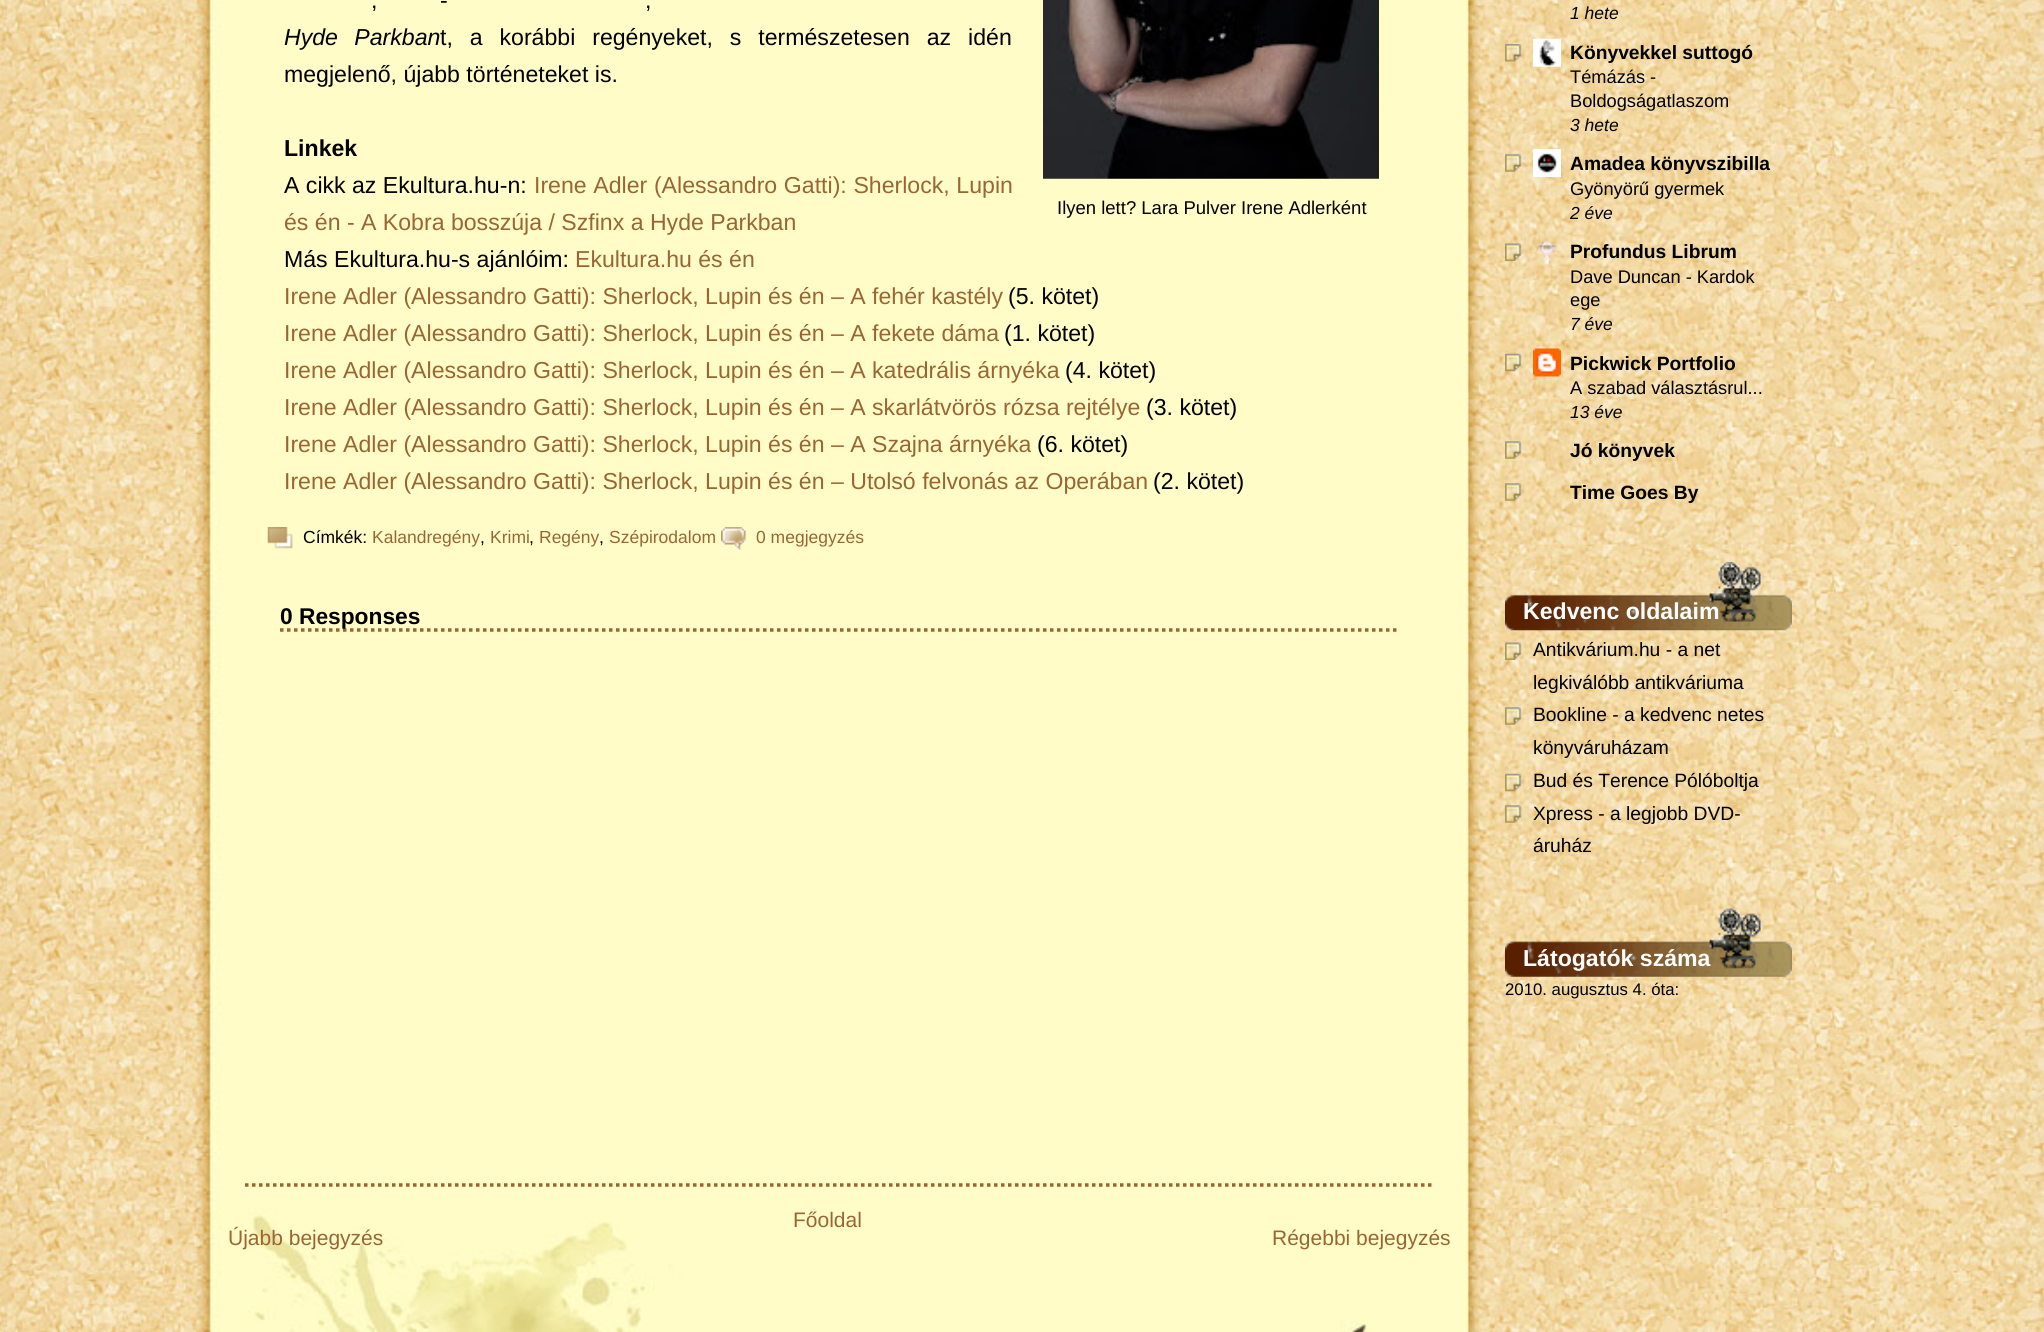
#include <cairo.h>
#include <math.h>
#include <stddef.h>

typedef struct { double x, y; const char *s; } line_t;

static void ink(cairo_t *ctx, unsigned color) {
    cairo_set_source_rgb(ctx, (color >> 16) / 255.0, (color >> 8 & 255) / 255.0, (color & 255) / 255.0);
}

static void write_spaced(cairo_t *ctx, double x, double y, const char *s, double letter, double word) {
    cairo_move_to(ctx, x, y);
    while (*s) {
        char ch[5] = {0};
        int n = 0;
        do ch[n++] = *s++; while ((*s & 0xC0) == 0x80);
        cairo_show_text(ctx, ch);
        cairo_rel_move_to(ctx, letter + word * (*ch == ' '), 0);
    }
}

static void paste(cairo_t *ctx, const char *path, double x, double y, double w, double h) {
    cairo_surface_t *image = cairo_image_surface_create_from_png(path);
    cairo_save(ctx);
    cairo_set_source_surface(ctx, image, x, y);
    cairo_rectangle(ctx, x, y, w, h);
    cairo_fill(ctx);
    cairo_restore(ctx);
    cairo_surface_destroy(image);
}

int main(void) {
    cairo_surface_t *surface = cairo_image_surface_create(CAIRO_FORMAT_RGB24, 2044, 1332);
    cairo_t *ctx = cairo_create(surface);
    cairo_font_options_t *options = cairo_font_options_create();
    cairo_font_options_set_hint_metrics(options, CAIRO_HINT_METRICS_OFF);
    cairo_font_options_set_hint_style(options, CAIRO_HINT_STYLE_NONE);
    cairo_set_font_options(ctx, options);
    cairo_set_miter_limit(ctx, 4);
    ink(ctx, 0xFFFFFF);
    cairo_paint(ctx);
    paste(ctx, "media/1.png", 0, 0, 2044, 1332);
    paste(ctx, "media/2.png", 164, 0, 1716, 1332);
    paste(ctx, "media/3.png", 164, 1207, 1716, 125);
    cairo_select_font_face(ctx, "Liberation Sans", CAIRO_FONT_SLANT_NORMAL, CAIRO_FONT_WEIGHT_NORMAL);
    cairo_set_font_size(ctx, 23.1);
    ink(ctx, 0x000000);
    {
        static const line_t items[] = {
            {440, 8, "-"},
            {371, 8, ","},
            {645, 8, ","},
        };
        for (size_t i = 0; i < sizeof items / sizeof *items; i++) {
            write_spaced(ctx, items[i].x, items[i].y, items[i].s, 0, 4);
        }
    }
    cairo_select_font_face(ctx, "Liberation Sans", CAIRO_FONT_SLANT_ITALIC, CAIRO_FONT_WEIGHT_NORMAL);
    write_spaced(ctx, 284, 45, "Hyde Parkban", 0, 10);
    cairo_select_font_face(ctx, "Liberation Sans", CAIRO_FONT_SLANT_NORMAL, CAIRO_FONT_WEIGHT_NORMAL);
    write_spaced(ctx, 440, 45, "t, a korábbi regényeket, s természetesen az idén", 0, 10.5);
    cairo_move_to(ctx, 284, 82);
    cairo_show_text(ctx, "megjelenő, újabb történeteket is.");
    cairo_select_font_face(ctx, "Liberation Sans", CAIRO_FONT_SLANT_NORMAL, CAIRO_FONT_WEIGHT_BOLD);
    cairo_move_to(ctx, 284, 156);
    cairo_show_text(ctx, "Linkek");
    cairo_select_font_face(ctx, "Liberation Sans", CAIRO_FONT_SLANT_NORMAL, CAIRO_FONT_WEIGHT_NORMAL);
    cairo_move_to(ctx, 284, 193);
    cairo_show_text(ctx, "A cikk az Ekultura.hu-n:");
    ink(ctx, 0x996633);
    write_spaced(ctx, 534, 193, "Irene Adler (Alessandro Gatti): Sherlock, Lupin", 0, 0.25);
    paste(ctx, "media/4.png", 1043, 0, 336, 179);
    cairo_set_font_size(ctx, 18.5);
    ink(ctx, 0x000000);
    cairo_move_to(ctx, 1057, 214);
    cairo_show_text(ctx, "Ilyen lett? Lara Pulver Irene Adlerként");
    cairo_set_font_size(ctx, 23.1);
    ink(ctx, 0x996633);
    cairo_move_to(ctx, 284, 230);
    cairo_show_text(ctx, "és én - A Kobra bosszúja / Szfinx a Hyde Parkban");
    ink(ctx, 0x000000);
    cairo_move_to(ctx, 284, 267);
    cairo_show_text(ctx, "Más Ekultura.hu-s ajánlóim:");
    ink(ctx, 0x996633);
    cairo_move_to(ctx, 575, 267);
    cairo_show_text(ctx, "Ekultura.hu és én");
    cairo_move_to(ctx, 284, 304);
    cairo_show_text(ctx, "Irene Adler (Alessandro Gatti): Sherlock, Lupin és én – A fehér kastély");
    ink(ctx, 0x000000);
    cairo_move_to(ctx, 1008, 304);
    cairo_show_text(ctx, "(5. kötet)");
    ink(ctx, 0x996633);
    cairo_move_to(ctx, 284, 341);
    cairo_show_text(ctx, "Irene Adler (Alessandro Gatti): Sherlock, Lupin és én – A fekete dáma");
    ink(ctx, 0x000000);
    cairo_move_to(ctx, 1004, 341);
    cairo_show_text(ctx, "(1. kötet)");
    ink(ctx, 0x996633);
    cairo_move_to(ctx, 284, 378);
    cairo_show_text(ctx, "Irene Adler (Alessandro Gatti): Sherlock, Lupin és én – A katedrális árnyéka");
    ink(ctx, 0x000000);
    cairo_move_to(ctx, 1065, 378);
    cairo_show_text(ctx, "(4. kötet)");
    ink(ctx, 0x996633);
    cairo_move_to(ctx, 284, 415);
    cairo_show_text(ctx, "Irene Adler (Alessandro Gatti): Sherlock, Lupin és én – A skarlátvörös rózsa rejtélye");
    ink(ctx, 0x000000);
    cairo_move_to(ctx, 1146, 415);
    cairo_show_text(ctx, "(3. kötet)");
    ink(ctx, 0x996633);
    cairo_move_to(ctx, 284, 452);
    cairo_show_text(ctx, "Irene Adler (Alessandro Gatti): Sherlock, Lupin és én – A Szajna árnyéka");
    ink(ctx, 0x000000);
    cairo_move_to(ctx, 1037, 452);
    cairo_show_text(ctx, "(6. kötet)");
    ink(ctx, 0x996633);
    cairo_move_to(ctx, 284, 489);
    cairo_show_text(ctx, "Irene Adler (Alessandro Gatti): Sherlock, Lupin és én – Utolsó felvonás az Operában");
    ink(ctx, 0x000000);
    cairo_move_to(ctx, 1153, 489);
    cairo_show_text(ctx, "(2. kötet)");
    paste(ctx, "media/5.png", 267, 527, 26, 22);
    cairo_set_font_size(ctx, 17.5);
    cairo_move_to(ctx, 303, 543);
    cairo_show_text(ctx, "Címkék:");
    ink(ctx, 0x996633);
    cairo_move_to(ctx, 372, 543);
    cairo_show_text(ctx, "Kalandregény");
    ink(ctx, 0x000000);
    cairo_move_to(ctx, 480, 543);
    cairo_show_text(ctx, ",");
    ink(ctx, 0x996633);
    cairo_move_to(ctx, 490, 543);
    cairo_show_text(ctx, "Krimi");
    ink(ctx, 0x000000);
    cairo_move_to(ctx, 529, 543);
    cairo_show_text(ctx, ",");
    ink(ctx, 0x996633);
    cairo_move_to(ctx, 539, 543);
    cairo_show_text(ctx, "Regény");
    ink(ctx, 0x000000);
    cairo_move_to(ctx, 599, 543);
    cairo_show_text(ctx, ",");
    ink(ctx, 0x996633);
    cairo_move_to(ctx, 609, 543);
    cairo_show_text(ctx, "Szépirodalom");
    paste(ctx, "media/6.png", 721, 527, 25, 25);
    cairo_move_to(ctx, 756, 543);
    cairo_show_text(ctx, "0 megjegyzés");
    cairo_new_path(ctx);
    cairo_move_to(ctx, 245, 1185);
    cairo_line_to(ctx, 1433, 1185);
    cairo_set_line_width(ctx, 3.5);
    cairo_set_dash(ctx, (double[]){3.5, 3.5}, 2, 0);
    cairo_stroke(ctx);
    cairo_new_path(ctx);
    cairo_move_to(ctx, 280, 630);
    cairo_line_to(ctx, 1398, 630);
    cairo_stroke(ctx);
    cairo_select_font_face(ctx, "Liberation Sans", CAIRO_FONT_SLANT_NORMAL, CAIRO_FONT_WEIGHT_BOLD);
    cairo_set_font_size(ctx, 22.75);
    ink(ctx, 0x000000);
    cairo_move_to(ctx, 280, 624);
    cairo_show_text(ctx, "0 Responses");
    cairo_select_font_face(ctx, "Liberation Sans", CAIRO_FONT_SLANT_NORMAL, CAIRO_FONT_WEIGHT_NORMAL);
    cairo_set_font_size(ctx, 21);
    ink(ctx, 0x996633);
    {
        static const line_t items[] = {
            {793, 1227, "Főoldal"},
            {228, 1245, "Újabb bejegyzés"},
            {1272, 1245, "Régebbi bejegyzés"},
        };
        for (size_t i = 0; i < sizeof items / sizeof *items; i++) {
            cairo_move_to(ctx, items[i].x, items[i].y);
            cairo_show_text(ctx, items[i].s);
        }
    }
    cairo_select_font_face(ctx, "Liberation Sans", CAIRO_FONT_SLANT_ITALIC, CAIRO_FONT_WEIGHT_NORMAL);
    cairo_set_font_size(ctx, 17.5);
    ink(ctx, 0x000000);
    cairo_move_to(ctx, 1570, 19);
    cairo_show_text(ctx, "1 hete");
    paste(ctx, "media/7.png", 1505, 44, 17, 18);
    paste(ctx, "media/8.png", 1533, 38, 28, 29);
    cairo_select_font_face(ctx, "Liberation Sans", CAIRO_FONT_SLANT_NORMAL, CAIRO_FONT_WEIGHT_BOLD);
    cairo_set_font_size(ctx, 19.25);
    cairo_move_to(ctx, 1570, 59);
    cairo_show_text(ctx, "Könyvekkel suttogó");
    cairo_select_font_face(ctx, "Liberation Sans", CAIRO_FONT_SLANT_NORMAL, CAIRO_FONT_WEIGHT_NORMAL);
    cairo_set_font_size(ctx, 18.25);
    cairo_move_to(ctx, 1570, 83);
    cairo_show_text(ctx, "Témázás -");
    cairo_move_to(ctx, 1570, 107);
    cairo_show_text(ctx, "Boldogságatlaszom");
    cairo_select_font_face(ctx, "Liberation Sans", CAIRO_FONT_SLANT_ITALIC, CAIRO_FONT_WEIGHT_NORMAL);
    cairo_set_font_size(ctx, 17.5);
    cairo_move_to(ctx, 1570, 131);
    cairo_show_text(ctx, "3 hete");
    paste(ctx, "media/9.png", 1505, 154, 17, 18);
    paste(ctx, "media/10.png", 1533, 149, 28, 28);
    cairo_select_font_face(ctx, "Liberation Sans", CAIRO_FONT_SLANT_NORMAL, CAIRO_FONT_WEIGHT_BOLD);
    cairo_set_font_size(ctx, 19.25);
    cairo_move_to(ctx, 1570, 170);
    cairo_show_text(ctx, "Amadea könyvszibilla");
    cairo_select_font_face(ctx, "Liberation Sans", CAIRO_FONT_SLANT_NORMAL, CAIRO_FONT_WEIGHT_NORMAL);
    cairo_set_font_size(ctx, 18.25);
    cairo_move_to(ctx, 1570, 195);
    cairo_show_text(ctx, "Gyönyörű gyermek");
    cairo_select_font_face(ctx, "Liberation Sans", CAIRO_FONT_SLANT_ITALIC, CAIRO_FONT_WEIGHT_NORMAL);
    cairo_set_font_size(ctx, 17.5);
    cairo_move_to(ctx, 1570, 219);
    cairo_show_text(ctx, "2 éve");
    paste(ctx, "media/11.png", 1505, 243, 17, 18);
    paste(ctx, "media/12.png", 1536, 238, 22, 28);
    cairo_select_font_face(ctx, "Liberation Sans", CAIRO_FONT_SLANT_NORMAL, CAIRO_FONT_WEIGHT_BOLD);
    cairo_set_font_size(ctx, 19.25);
    cairo_move_to(ctx, 1570, 258);
    cairo_show_text(ctx, "Profundus Librum");
    cairo_select_font_face(ctx, "Liberation Sans", CAIRO_FONT_SLANT_NORMAL, CAIRO_FONT_WEIGHT_NORMAL);
    cairo_set_font_size(ctx, 18.25);
    cairo_move_to(ctx, 1570, 283);
    cairo_show_text(ctx, "Dave Duncan - Kardok");
    cairo_move_to(ctx, 1570, 306);
    cairo_show_text(ctx, "ege");
    cairo_select_font_face(ctx, "Liberation Sans", CAIRO_FONT_SLANT_ITALIC, CAIRO_FONT_WEIGHT_NORMAL);
    cairo_set_font_size(ctx, 17.5);
    cairo_move_to(ctx, 1570, 330);
    cairo_show_text(ctx, "7 éve");
    paste(ctx, "media/13.png", 1505, 353, 17, 19);
    paste(ctx, "media/14.png", 1533, 348, 28, 29);
    cairo_select_font_face(ctx, "Liberation Sans", CAIRO_FONT_SLANT_NORMAL, CAIRO_FONT_WEIGHT_BOLD);
    cairo_set_font_size(ctx, 19.25);
    cairo_move_to(ctx, 1570, 370);
    cairo_show_text(ctx, "Pickwick Portfolio");
    cairo_select_font_face(ctx, "Liberation Sans", CAIRO_FONT_SLANT_NORMAL, CAIRO_FONT_WEIGHT_NORMAL);
    cairo_set_font_size(ctx, 18.25);
    cairo_move_to(ctx, 1570, 394);
    cairo_show_text(ctx, "A szabad választásrul...");
    cairo_select_font_face(ctx, "Liberation Sans", CAIRO_FONT_SLANT_ITALIC, CAIRO_FONT_WEIGHT_NORMAL);
    cairo_set_font_size(ctx, 17.5);
    cairo_move_to(ctx, 1570, 418);
    cairo_show_text(ctx, "13 éve");
    paste(ctx, "media/15.png", 1505, 441, 17, 18);
    cairo_select_font_face(ctx, "Liberation Sans", CAIRO_FONT_SLANT_NORMAL, CAIRO_FONT_WEIGHT_BOLD);
    cairo_set_font_size(ctx, 19.25);
    cairo_move_to(ctx, 1570, 457);
    cairo_show_text(ctx, "Jó könyvek");
    paste(ctx, "media/16.png", 1505, 483, 17, 18);
    cairo_move_to(ctx, 1570, 499);
    cairo_show_text(ctx, "Time Goes By");
    paste(ctx, "media/17.png", 1505, 562, 287, 69);
    cairo_set_font_size(ctx, 23.1);
    ink(ctx, 0xFFFFFF);
    cairo_move_to(ctx, 1523, 619);
    cairo_show_text(ctx, "Kedvenc oldalaim");
    paste(ctx, "media/18.png", 1505, 642, 17, 18);
    cairo_select_font_face(ctx, "Liberation Sans", CAIRO_FONT_SLANT_NORMAL, CAIRO_FONT_WEIGHT_NORMAL);
    cairo_set_font_size(ctx, 19.25);
    ink(ctx, 0x000000);
    cairo_move_to(ctx, 1533, 656);
    cairo_show_text(ctx, "Antikvárium.hu - a net");
    cairo_move_to(ctx, 1533, 689);
    cairo_show_text(ctx, "legkiválóbb antikváriuma");
    paste(ctx, "media/19.png", 1505, 707, 17, 18);
    cairo_move_to(ctx, 1533, 721);
    cairo_show_text(ctx, "Bookline - a kedvenc netes");
    cairo_move_to(ctx, 1533, 754);
    cairo_show_text(ctx, "könyváruházam");
    paste(ctx, "media/20.png", 1505, 773, 17, 19);
    cairo_move_to(ctx, 1533, 787);
    cairo_show_text(ctx, "Bud és Terence Pólóboltja");
    paste(ctx, "media/21.png", 1505, 805, 17, 18);
    cairo_move_to(ctx, 1533, 820);
    cairo_show_text(ctx, "Xpress - a legjobb DVD-");
    cairo_move_to(ctx, 1533, 852);
    cairo_show_text(ctx, "áruház");
    paste(ctx, "media/22.png", 1505, 908, 287, 69);
    cairo_select_font_face(ctx, "Liberation Sans", CAIRO_FONT_SLANT_NORMAL, CAIRO_FONT_WEIGHT_BOLD);
    cairo_set_font_size(ctx, 23.1);
    ink(ctx, 0xFFFFFF);
    cairo_move_to(ctx, 1523, 966);
    cairo_show_text(ctx, "Látogatók száma");
    cairo_select_font_face(ctx, "Liberation Sans", CAIRO_FONT_SLANT_NORMAL, CAIRO_FONT_WEIGHT_NORMAL);
    cairo_set_font_size(ctx, 16.75);
    ink(ctx, 0x000000);
    cairo_move_to(ctx, 1505, 995);
    cairo_show_text(ctx, "2010. augusztus 4. óta:");
    cairo_surface_write_to_png(surface, "image.png");
    cairo_font_options_destroy(options);
    cairo_destroy(ctx);
    cairo_surface_destroy(surface);
    return 0;
}
